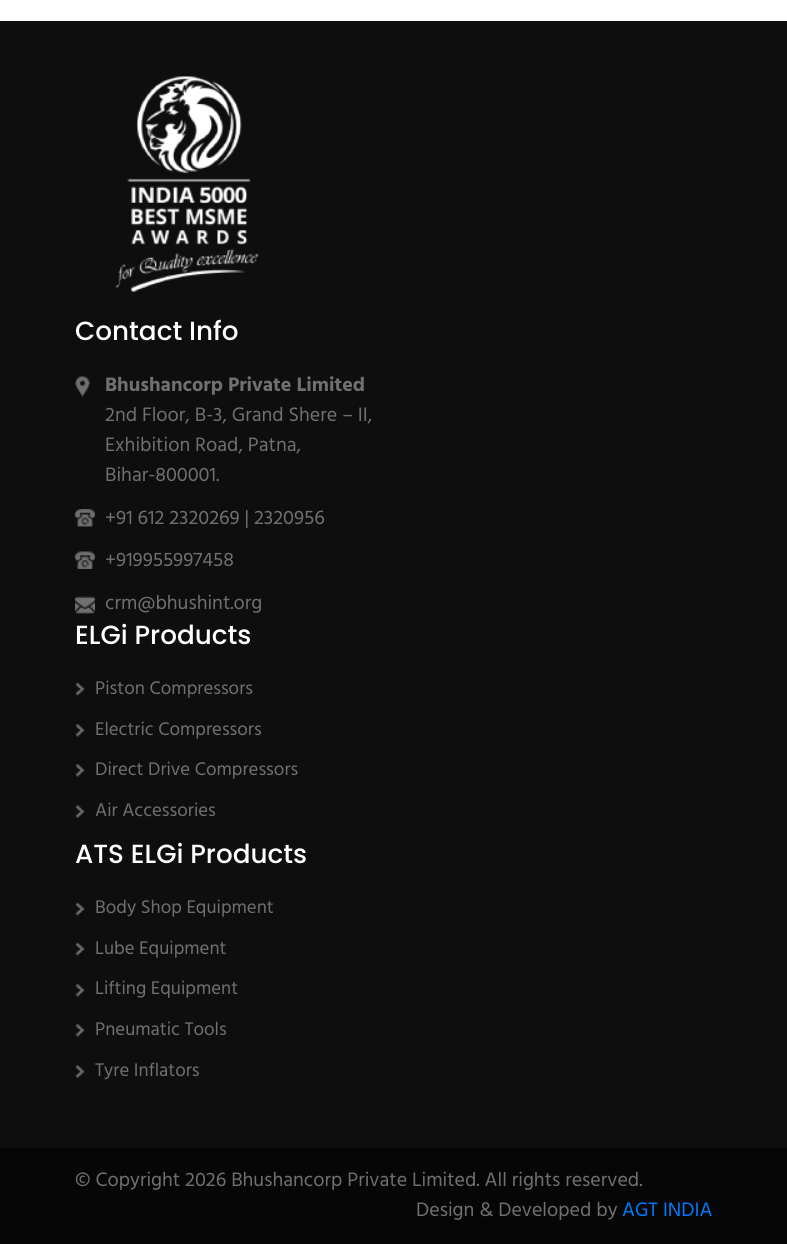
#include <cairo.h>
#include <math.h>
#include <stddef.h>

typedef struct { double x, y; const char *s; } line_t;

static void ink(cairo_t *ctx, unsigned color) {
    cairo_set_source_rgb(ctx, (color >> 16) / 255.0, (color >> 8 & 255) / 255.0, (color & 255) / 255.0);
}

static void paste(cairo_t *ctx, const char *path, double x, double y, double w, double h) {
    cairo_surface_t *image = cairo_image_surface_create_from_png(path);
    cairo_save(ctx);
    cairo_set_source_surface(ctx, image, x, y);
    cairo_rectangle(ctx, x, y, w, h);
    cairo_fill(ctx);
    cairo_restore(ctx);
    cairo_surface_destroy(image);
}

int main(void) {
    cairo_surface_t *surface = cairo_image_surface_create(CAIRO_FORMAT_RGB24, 787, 1244);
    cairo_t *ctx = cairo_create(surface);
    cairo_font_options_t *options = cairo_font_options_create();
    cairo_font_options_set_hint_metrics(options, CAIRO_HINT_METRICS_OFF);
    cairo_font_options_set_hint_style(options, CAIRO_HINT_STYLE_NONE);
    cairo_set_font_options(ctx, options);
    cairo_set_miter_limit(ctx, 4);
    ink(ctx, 0xFFFFFF);
    cairo_paint(ctx);
    ink(ctx, 0x0E0E0E);
    cairo_rectangle(ctx, 0, 21, 787, 1127);
    cairo_fill(ctx);
    paste(ctx, "media/1.png", 115, 76, 144, 216);
    cairo_select_font_face(ctx, "Poppins Medium", CAIRO_FONT_SLANT_NORMAL, CAIRO_FONT_WEIGHT_NORMAL);
    cairo_set_font_size(ctx, 26.25);
    ink(ctx, 0xFFFFFF);
    cairo_move_to(ctx, 75, 340);
    cairo_show_text(ctx, "Contact Info");
    paste(ctx, "media/2.png", 75, 376, 15, 21);
    cairo_select_font_face(ctx, "Hind", CAIRO_FONT_SLANT_NORMAL, CAIRO_FONT_WEIGHT_BOLD);
    cairo_set_font_size(ctx, 20);
    ink(ctx, 0x707070);
    cairo_move_to(ctx, 105, 391);
    cairo_show_text(ctx, "Bhushancorp Private Limited");
    cairo_select_font_face(ctx, "Hind", CAIRO_FONT_SLANT_NORMAL, CAIRO_FONT_WEIGHT_NORMAL);
    {
        static const line_t items[] = {
            {105, 421, "2nd Floor, B-3, Grand Shere – II,"},
            {105, 451, "Exhibition Road, Patna,"},
            {105, 481, "Bihar-800001."},
        };
        for (size_t i = 0; i < sizeof items / sizeof *items; i++) {
            cairo_move_to(ctx, items[i].x, items[i].y);
            cairo_show_text(ctx, items[i].s);
        }
    }
    paste(ctx, "media/3.png", 75, 509, 20, 18);
    cairo_move_to(ctx, 105, 524);
    cairo_show_text(ctx, "+91 612 2320269 | 2320956");
    paste(ctx, "media/4.png", 75, 551, 20, 18);
    cairo_move_to(ctx, 105, 566);
    cairo_show_text(ctx, "+919955997458");
    paste(ctx, "media/5.png", 75, 596, 20, 18);
    cairo_move_to(ctx, 105, 609);
    cairo_show_text(ctx, "crm@bhushint.org");
    cairo_select_font_face(ctx, "Poppins Medium", CAIRO_FONT_SLANT_NORMAL, CAIRO_FONT_WEIGHT_NORMAL);
    cairo_set_font_size(ctx, 26.25);
    ink(ctx, 0xFFFFFF);
    cairo_move_to(ctx, 75, 644);
    cairo_show_text(ctx, "ELGi Products");
    paste(ctx, "media/6.png", 75, 682, 10, 14);
    cairo_select_font_face(ctx, "Hind", CAIRO_FONT_SLANT_NORMAL, CAIRO_FONT_WEIGHT_NORMAL);
    cairo_set_font_size(ctx, 18.75);
    ink(ctx, 0x707070);
    cairo_move_to(ctx, 95, 694);
    cairo_show_text(ctx, "Piston Compressors");
    paste(ctx, "media/7.png", 75, 724, 10, 13);
    cairo_move_to(ctx, 95, 735);
    cairo_show_text(ctx, "Electric Compressors");
    paste(ctx, "media/7.png", 75, 764, 10, 13);
    cairo_move_to(ctx, 95, 775);
    cairo_show_text(ctx, "Direct Drive Compressors");
    paste(ctx, "media/8.png", 75, 805, 10, 13);
    cairo_move_to(ctx, 95, 816);
    cairo_show_text(ctx, "Air Accessories");
    cairo_select_font_face(ctx, "Poppins Medium", CAIRO_FONT_SLANT_NORMAL, CAIRO_FONT_WEIGHT_NORMAL);
    cairo_set_font_size(ctx, 26.25);
    ink(ctx, 0xFFFFFF);
    cairo_move_to(ctx, 75, 863);
    cairo_show_text(ctx, "ATS ELGi Products");
    paste(ctx, "media/6.png", 75, 902, 10, 14);
    cairo_select_font_face(ctx, "Hind", CAIRO_FONT_SLANT_NORMAL, CAIRO_FONT_WEIGHT_NORMAL);
    cairo_set_font_size(ctx, 18.75);
    ink(ctx, 0x707070);
    cairo_move_to(ctx, 95, 913);
    cairo_show_text(ctx, "Body Shop Equipment");
    paste(ctx, "media/6.png", 75, 942, 10, 14);
    cairo_move_to(ctx, 95, 954);
    cairo_show_text(ctx, "Lube Equipment");
    paste(ctx, "media/7.png", 75, 984, 10, 13);
    cairo_move_to(ctx, 95, 994);
    cairo_show_text(ctx, "Lifting Equipment");
    paste(ctx, "media/7.png", 75, 1024, 10, 13);
    cairo_move_to(ctx, 95, 1035);
    cairo_show_text(ctx, "Pneumatic Tools");
    paste(ctx, "media/8.png", 75, 1065, 10, 13);
    cairo_move_to(ctx, 95, 1076);
    cairo_show_text(ctx, "Tyre Inflators");
    ink(ctx, 0x060606);
    cairo_rectangle(ctx, 0, 1148, 787, 96);
    cairo_fill(ctx);
    cairo_set_font_size(ctx, 20);
    ink(ctx, 0x707070);
    cairo_move_to(ctx, 75, 1186);
    cairo_show_text(ctx, "© Copyright 2026 Bhushancorp Private Limited. All rights reserved.");
    cairo_move_to(ctx, 416, 1216);
    cairo_show_text(ctx, "Design & Developed by");
    ink(ctx, 0x007BFF);
    cairo_move_to(ctx, 622, 1216);
    cairo_show_text(ctx, "AGT INDIA");
    cairo_surface_write_to_png(surface, "image.png");
    cairo_font_options_destroy(options);
    cairo_destroy(ctx);
    cairo_surface_destroy(surface);
    return 0;
}
